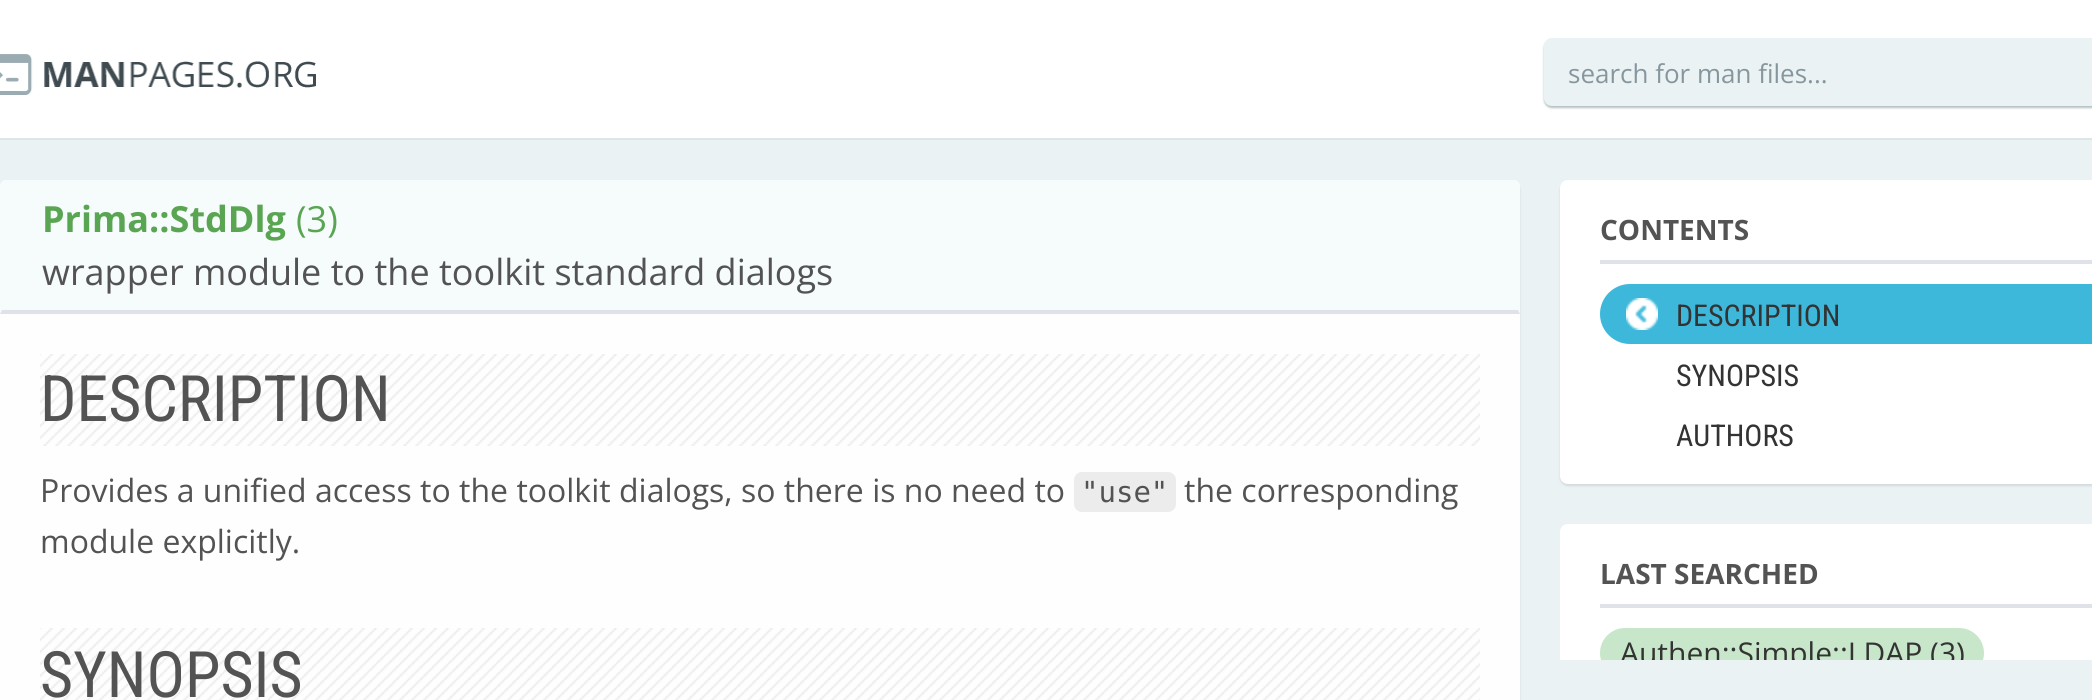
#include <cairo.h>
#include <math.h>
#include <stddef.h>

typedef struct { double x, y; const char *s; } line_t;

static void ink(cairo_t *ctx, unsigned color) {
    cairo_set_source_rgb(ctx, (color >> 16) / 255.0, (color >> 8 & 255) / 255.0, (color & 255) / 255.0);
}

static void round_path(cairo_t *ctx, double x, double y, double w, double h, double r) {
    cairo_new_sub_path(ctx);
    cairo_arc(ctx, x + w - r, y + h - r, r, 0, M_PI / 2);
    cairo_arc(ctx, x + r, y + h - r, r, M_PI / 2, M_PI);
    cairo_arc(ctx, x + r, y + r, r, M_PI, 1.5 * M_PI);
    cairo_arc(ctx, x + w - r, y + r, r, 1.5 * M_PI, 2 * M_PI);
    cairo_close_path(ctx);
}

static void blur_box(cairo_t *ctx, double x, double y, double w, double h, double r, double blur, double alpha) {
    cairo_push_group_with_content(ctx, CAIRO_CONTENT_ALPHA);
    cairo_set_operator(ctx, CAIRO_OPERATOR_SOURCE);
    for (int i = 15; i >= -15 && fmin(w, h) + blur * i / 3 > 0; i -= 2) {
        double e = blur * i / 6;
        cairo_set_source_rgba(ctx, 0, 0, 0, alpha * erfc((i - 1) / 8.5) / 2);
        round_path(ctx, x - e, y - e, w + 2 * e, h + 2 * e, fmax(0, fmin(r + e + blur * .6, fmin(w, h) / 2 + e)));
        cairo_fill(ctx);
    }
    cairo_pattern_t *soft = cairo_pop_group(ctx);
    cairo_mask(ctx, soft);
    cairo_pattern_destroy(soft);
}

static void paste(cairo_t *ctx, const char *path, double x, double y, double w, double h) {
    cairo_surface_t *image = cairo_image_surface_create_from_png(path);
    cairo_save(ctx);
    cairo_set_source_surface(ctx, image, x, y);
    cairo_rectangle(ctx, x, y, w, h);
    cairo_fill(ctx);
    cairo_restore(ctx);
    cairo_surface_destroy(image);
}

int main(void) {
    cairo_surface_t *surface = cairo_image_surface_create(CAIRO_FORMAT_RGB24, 2092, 700);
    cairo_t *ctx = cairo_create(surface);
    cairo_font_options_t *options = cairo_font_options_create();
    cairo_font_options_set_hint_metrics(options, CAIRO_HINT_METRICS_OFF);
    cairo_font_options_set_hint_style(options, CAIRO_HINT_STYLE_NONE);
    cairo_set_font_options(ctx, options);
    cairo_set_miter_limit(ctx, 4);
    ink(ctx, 0xEAF2F4);
    cairo_paint(ctx);
    ink(ctx, 0xFFFFFF);
    cairo_rectangle(ctx, 0, 0, 2092, 138);
    cairo_fill(ctx);
    ink(ctx, 0xDCE5E7);
    cairo_rectangle(ctx, 0, 138, 2092, 2);
    cairo_fill(ctx);
    paste(ctx, "media/1.png", 0, 54, 316, 41);
    ink(ctx, 0x062F37);
    blur_box(ctx, 1544, 40, 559, 68, 8, 1, 0.3);
    ink(ctx, 0xEAF2F4);
    round_path(ctx, 1544, 38, 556, 68, 8);
    cairo_fill(ctx);
    cairo_select_font_face(ctx, "Open Sans", CAIRO_FONT_SLANT_NORMAL, CAIRO_FONT_WEIGHT_NORMAL);
    cairo_set_font_size(ctx, 26);
    ink(ctx, 0x86969D);
    cairo_move_to(ctx, 1568, 83);
    cairo_show_text(ctx, "search for man files...");
    ink(ctx, 0xE4EDEF);
    cairo_rectangle(ctx, 2091, 85, 1, 1);
    cairo_fill(ctx);
    ink(ctx, 0x000000);
    blur_box(ctx, 0, 182, 1520, 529, 8, 1, 0.1);
    ink(ctx, 0xFEFEFE);
    cairo_new_path(ctx);
    cairo_move_to(ctx, 8, 180);
    cairo_line_to(ctx, 1512, 180);
    cairo_curve_to(ctx, 1516.5, 180, 1520, 183.5, 1520, 188);
    cairo_line_to(ctx, 1520, 700);
    cairo_line_to(ctx, 0, 700);
    cairo_line_to(ctx, 0, 188);
    cairo_curve_to(ctx, 0, 183.5, 3.5, 180, 8, 180);
    cairo_close_path(ctx);
    cairo_fill(ctx);
    ink(ctx, 0xF6FBFC);
    cairo_new_path(ctx);
    cairo_move_to(ctx, 6, 180);
    cairo_line_to(ctx, 1514, 180);
    cairo_curve_to(ctx, 1517.5, 180, 1520, 182.5, 1520, 186);
    cairo_line_to(ctx, 1520, 314);
    cairo_line_to(ctx, 0, 314);
    cairo_line_to(ctx, 0, 186);
    cairo_curve_to(ctx, 0, 182.5, 2.5, 180, 6, 180);
    cairo_close_path(ctx);
    cairo_fill(ctx);
    ink(ctx, 0xDFE3E9);
    cairo_new_path(ctx);
    cairo_move_to(ctx, 1520, 314);
    cairo_line_to(ctx, 1518, 310);
    cairo_line_to(ctx, 2, 310);
    cairo_line_to(ctx, 0, 314);
    cairo_close_path(ctx);
    cairo_fill(ctx);
    cairo_select_font_face(ctx, "Open Sans", CAIRO_FONT_SLANT_NORMAL, CAIRO_FONT_WEIGHT_BOLD);
    cairo_set_font_size(ctx, 36);
    ink(ctx, 0x59A552);
    cairo_move_to(ctx, 42, 232);
    cairo_show_text(ctx, "Prima::StdDlg");
    cairo_select_font_face(ctx, "Open Sans", CAIRO_FONT_SLANT_NORMAL, CAIRO_FONT_WEIGHT_NORMAL);
    cairo_move_to(ctx, 296, 232);
    cairo_show_text(ctx, "(3)");
    ink(ctx, 0x535353);
    cairo_move_to(ctx, 42, 285);
    cairo_show_text(ctx, "wrapper module to the toolkit standard dialogs");
    paste(ctx, "media/2.png", 40, 354, 1440, 92);
    cairo_select_font_face(ctx, "Roboto Condensed", CAIRO_FONT_SLANT_NORMAL, CAIRO_FONT_WEIGHT_NORMAL);
    cairo_set_font_size(ctx, 64);
    cairo_move_to(ctx, 40, 421);
    cairo_show_text(ctx, "DESCRIPTION");
    cairo_select_font_face(ctx, "Open Sans", CAIRO_FONT_SLANT_NORMAL, CAIRO_FONT_WEIGHT_NORMAL);
    cairo_set_font_size(ctx, 32);
    cairo_move_to(ctx, 40, 502);
    cairo_show_text(ctx, "Provides a unified access to the toolkit dialogs, so there is no need to");
    ink(ctx, 0xECECEC);
    round_path(ctx, 1074, 472, 102, 40, 8);
    cairo_fill(ctx);
    cairo_select_font_face(ctx, "DejaVu Sans Mono", CAIRO_FONT_SLANT_NORMAL, CAIRO_FONT_WEIGHT_NORMAL);
    cairo_set_font_size(ctx, 29);
    ink(ctx, 0x535353);
    cairo_move_to(ctx, 1081, 502);
    cairo_show_text(ctx, "\"use\"");
    cairo_select_font_face(ctx, "Open Sans", CAIRO_FONT_SLANT_NORMAL, CAIRO_FONT_WEIGHT_NORMAL);
    cairo_set_font_size(ctx, 32);
    cairo_move_to(ctx, 1184, 502);
    cairo_show_text(ctx, "the corresponding");
    cairo_move_to(ctx, 40, 553);
    cairo_show_text(ctx, "module explicitly.");
    paste(ctx, "media/3.png", 40, 628, 1440, 72);
    cairo_select_font_face(ctx, "Roboto Condensed", CAIRO_FONT_SLANT_NORMAL, CAIRO_FONT_WEIGHT_NORMAL);
    cairo_set_font_size(ctx, 64);
    cairo_move_to(ctx, 40, 697);
    cairo_show_text(ctx, "SYNOPSIS");
    ink(ctx, 0x000000);
    blur_box(ctx, 1560, 182, 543, 304, 8, 1, 0.1);
    ink(ctx, 0xFFFFFF);
    cairo_new_path(ctx);
    cairo_move_to(ctx, 1568, 180);
    cairo_line_to(ctx, 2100, 180);
    cairo_line_to(ctx, 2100, 484);
    cairo_line_to(ctx, 1568, 484);
    cairo_curve_to(ctx, 1563.5, 484, 1560, 480.5, 1560, 476);
    cairo_line_to(ctx, 1560, 188);
    cairo_curve_to(ctx, 1560, 183.5, 1563.5, 180, 1568, 180);
    cairo_close_path(ctx);
    cairo_fill(ctx);
    ink(ctx, 0xDFE3E9);
    cairo_rectangle(ctx, 1600, 260, 492, 4);
    cairo_fill(ctx);
    cairo_select_font_face(ctx, "Open Sans", CAIRO_FONT_SLANT_NORMAL, CAIRO_FONT_WEIGHT_BOLD);
    cairo_set_font_size(ctx, 28);
    ink(ctx, 0x535353);
    cairo_move_to(ctx, 1600, 240);
    cairo_show_text(ctx, "CONTENTS");
    ink(ctx, 0x3DB8DB);
    round_path(ctx, 1600, 284, 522, 60, 30);
    cairo_fill(ctx);
    paste(ctx, "media/4.png", 1626, 298, 32, 32);
    cairo_select_font_face(ctx, "Roboto Condensed", CAIRO_FONT_SLANT_NORMAL, CAIRO_FONT_WEIGHT_NORMAL);
    cairo_set_font_size(ctx, 30);
    ink(ctx, 0x333333);
    {
        static const line_t items[] = {
            {1676, 326, "DESCRIPTION"},
            {1676, 386, "SYNOPSIS"},
            {1676, 446, "AUTHORS"},
        };
        for (size_t i = 0; i < sizeof items / sizeof *items; i++) {
            cairo_move_to(ctx, items[i].x, items[i].y);
            cairo_show_text(ctx, items[i].s);
        }
    }
    ink(ctx, 0xFFFFFF);
    cairo_new_path(ctx);
    cairo_move_to(ctx, 1568, 524);
    cairo_line_to(ctx, 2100, 524);
    cairo_line_to(ctx, 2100, 660);
    cairo_line_to(ctx, 1560, 660);
    cairo_line_to(ctx, 1560, 532);
    cairo_curve_to(ctx, 1560, 527.5, 1563.5, 524, 1568, 524);
    cairo_close_path(ctx);
    cairo_fill(ctx);
    ink(ctx, 0xDFE3E9);
    cairo_rectangle(ctx, 1600, 604, 492, 4);
    cairo_fill(ctx);
    cairo_select_font_face(ctx, "Open Sans", CAIRO_FONT_SLANT_NORMAL, CAIRO_FONT_WEIGHT_BOLD);
    cairo_set_font_size(ctx, 28);
    ink(ctx, 0x535353);
    cairo_move_to(ctx, 1600, 584);
    cairo_show_text(ctx, "LAST SEARCHED");
    cairo_save(ctx);
    cairo_rectangle(ctx, 1560, 180, 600, 480);
    cairo_clip(ctx);
    ink(ctx, 0xC8E6C9);
    round_path(ctx, 1600, 628, 384, 50, 25);
    cairo_fill(ctx);
    cairo_select_font_face(ctx, "Open Sans", CAIRO_FONT_SLANT_NORMAL, CAIRO_FONT_WEIGHT_NORMAL);
    cairo_set_font_size(ctx, 30);
    ink(ctx, 0x333333);
    cairo_move_to(ctx, 1620, 664);
    cairo_show_text(ctx, "Authen::Simple::LDAP (3)");
    cairo_restore(ctx);
    cairo_surface_write_to_png(surface, "image.png");
    cairo_font_options_destroy(options);
    cairo_destroy(ctx);
    cairo_surface_destroy(surface);
    return 0;
}
